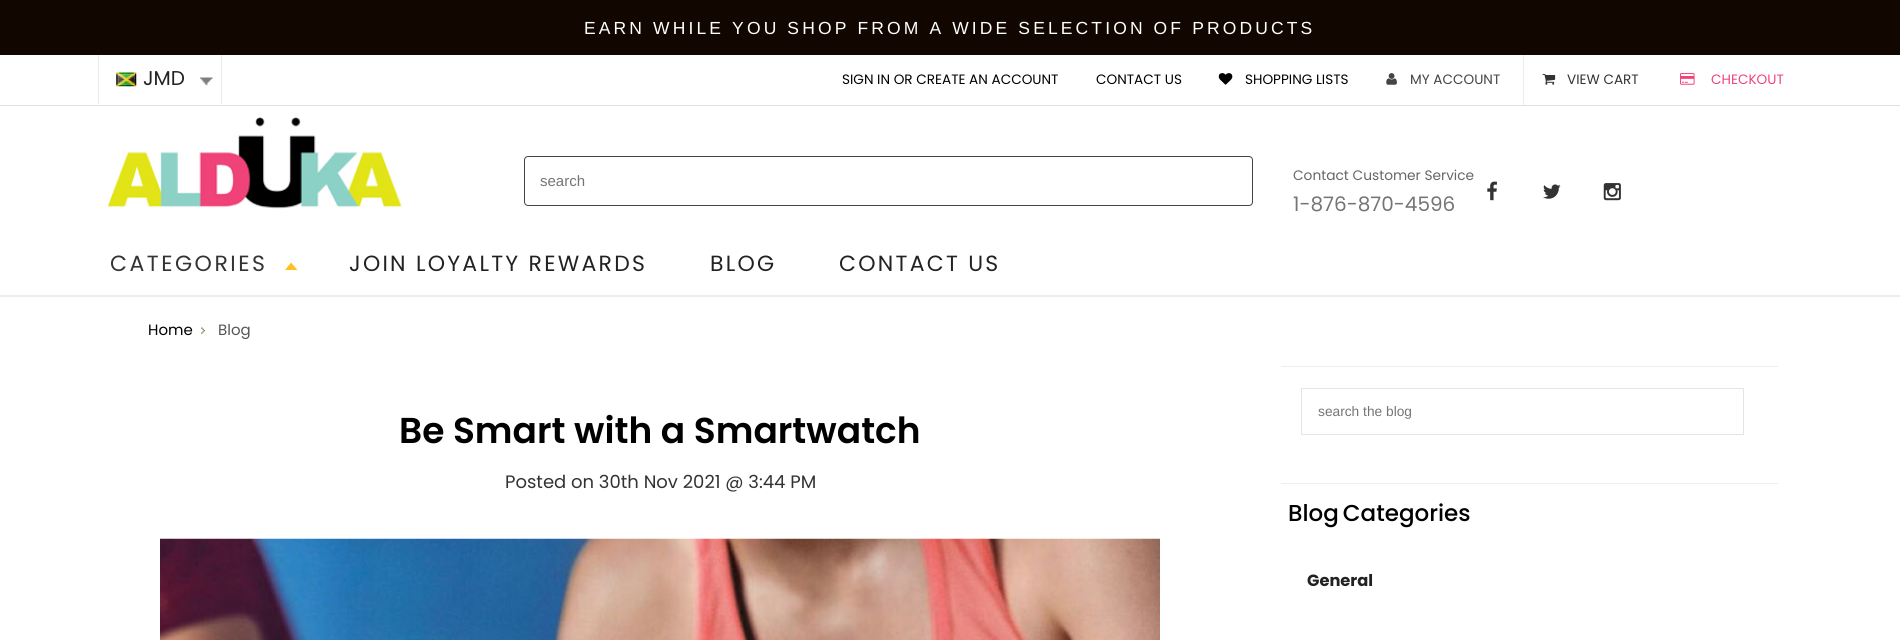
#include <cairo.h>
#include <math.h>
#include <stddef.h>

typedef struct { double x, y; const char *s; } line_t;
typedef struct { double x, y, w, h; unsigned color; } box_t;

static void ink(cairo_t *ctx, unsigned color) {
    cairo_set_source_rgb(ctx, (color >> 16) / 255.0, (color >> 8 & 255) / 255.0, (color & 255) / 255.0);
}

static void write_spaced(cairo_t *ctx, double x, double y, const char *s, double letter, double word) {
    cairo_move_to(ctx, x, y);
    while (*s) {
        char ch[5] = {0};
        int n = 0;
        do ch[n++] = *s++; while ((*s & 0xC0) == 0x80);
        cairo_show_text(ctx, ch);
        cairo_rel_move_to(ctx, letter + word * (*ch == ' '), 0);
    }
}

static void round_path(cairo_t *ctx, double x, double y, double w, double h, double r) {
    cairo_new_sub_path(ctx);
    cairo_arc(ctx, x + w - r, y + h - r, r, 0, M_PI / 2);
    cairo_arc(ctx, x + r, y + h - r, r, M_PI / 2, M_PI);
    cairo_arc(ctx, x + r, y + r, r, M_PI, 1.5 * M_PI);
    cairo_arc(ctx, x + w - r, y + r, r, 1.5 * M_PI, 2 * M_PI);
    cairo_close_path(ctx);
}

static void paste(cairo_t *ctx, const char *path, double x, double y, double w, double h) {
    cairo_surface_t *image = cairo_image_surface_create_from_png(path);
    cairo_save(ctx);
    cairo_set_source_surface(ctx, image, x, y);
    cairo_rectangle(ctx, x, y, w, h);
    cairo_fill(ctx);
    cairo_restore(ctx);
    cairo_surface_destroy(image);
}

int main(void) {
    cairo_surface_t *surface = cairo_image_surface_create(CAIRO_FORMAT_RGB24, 1900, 640);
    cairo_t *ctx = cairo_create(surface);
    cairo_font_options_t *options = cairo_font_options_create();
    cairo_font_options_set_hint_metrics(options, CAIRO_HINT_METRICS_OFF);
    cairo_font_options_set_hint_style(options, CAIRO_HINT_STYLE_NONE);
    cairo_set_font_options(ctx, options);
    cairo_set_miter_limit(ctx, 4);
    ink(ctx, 0xFFFFFF);
    cairo_paint(ctx);
    ink(ctx, 0x110700);
    cairo_rectangle(ctx, 0, 0, 1900, 55);
    cairo_fill(ctx);
    cairo_select_font_face(ctx, "Liberation Sans", CAIRO_FONT_SLANT_NORMAL, CAIRO_FONT_WEIGHT_NORMAL);
    cairo_set_font_size(ctx, 17.5);
    ink(ctx, 0xFFFFFF);
    write_spaced(ctx, 584, 34, "EARN WHILE YOU SHOP FROM A WIDE SELECTION OF PRODUCTS", 3.12, 0);
    {
        static const box_t items[] = {
            {0, 105, 1900, 1, 0xE0E0E0},
            {221, 55, 1, 49, 0xECECEC},
            {98, 55, 1, 49, 0xECECEC},
        };
        for (size_t i = 0; i < sizeof items / sizeof *items; i++) {
            ink(ctx, items[i].color);
            cairo_rectangle(ctx, items[i].x, items[i].y, items[i].w, items[i].h);
            cairo_fill(ctx);
        }
    }
    paste(ctx, "media/1.png", 116, 72, 21, 15);
    cairo_select_font_face(ctx, "Poppins", CAIRO_FONT_SLANT_NORMAL, CAIRO_FONT_WEIGHT_NORMAL);
    cairo_set_font_size(ctx, 20);
    ink(ctx, 0x222222);
    cairo_move_to(ctx, 143, 85);
    cairo_show_text(ctx, "JMD");
    paste(ctx, "media/2.png", 199, 77, 14, 9);
    cairo_set_font_size(ctx, 13.6);
    ink(ctx, 0x000000);
    cairo_move_to(ctx, 842, 84);
    cairo_show_text(ctx, "SIGN IN OR CREATE AN ACCOUNT");
    cairo_move_to(ctx, 1096, 84);
    cairo_show_text(ctx, "CONTACT US");
    paste(ctx, "media/3.png", 1218, 73, 15, 12);
    cairo_move_to(ctx, 1245, 84);
    cairo_show_text(ctx, "SHOPPING LISTS");
    paste(ctx, "media/4.png", 1386, 73, 11, 12);
    ink(ctx, 0x444444);
    cairo_move_to(ctx, 1410, 84);
    cairo_show_text(ctx, "MY ACCOUNT");
    ink(ctx, 0xECECEC);
    cairo_rectangle(ctx, 1523, 55, 1, 50);
    cairo_fill(ctx);
    paste(ctx, "media/5.png", 1542, 74, 14, 11);
    ink(ctx, 0x333333);
    cairo_move_to(ctx, 1567, 84);
    cairo_show_text(ctx, "VIEW CART");
    paste(ctx, "media/6.png", 1680, 73, 15, 12);
    ink(ctx, 0xF04379);
    cairo_move_to(ctx, 1711, 84);
    cairo_show_text(ctx, "CHECKOUT");
    paste(ctx, "media/7.png", 107, 117, 295, 92);
    round_path(ctx, 524.5, 156.5, 728, 49, 3.5);
    ink(ctx, 0x444444);
    cairo_set_line_width(ctx, 1);
    cairo_stroke(ctx);
    cairo_select_font_face(ctx, "Liberation Sans", CAIRO_FONT_SLANT_NORMAL, CAIRO_FONT_WEIGHT_NORMAL);
    cairo_set_font_size(ctx, 15);
    ink(ctx, 0x757575);
    cairo_move_to(ctx, 540, 186);
    cairo_show_text(ctx, "search");
    cairo_select_font_face(ctx, "Poppins", CAIRO_FONT_SLANT_NORMAL, CAIRO_FONT_WEIGHT_NORMAL);
    cairo_set_font_size(ctx, 13.75);
    ink(ctx, 0x666666);
    cairo_move_to(ctx, 1293, 180);
    cairo_show_text(ctx, "Contact Customer Service");
    cairo_set_font_size(ctx, 20);
    ink(ctx, 0x757575);
    cairo_move_to(ctx, 1293, 211);
    cairo_show_text(ctx, "1-876-870-4596");
    paste(ctx, "media/8.png", 1487, 181, 10, 20);
    paste(ctx, "media/9.png", 1543, 184, 18, 15);
    paste(ctx, "media/10.png", 1603, 183, 18, 18);
    cairo_set_font_size(ctx, 22);
    ink(ctx, 0x333333);
    write_spaced(ctx, 110, 271, "CATEGORIES", 2.5, 0);
    ink(ctx, 0xFFC120);
    cairo_new_path(ctx);
    cairo_move_to(ctx, 297.5, 270);
    cairo_line_to(ctx, 285, 270);
    cairo_line_to(ctx, 291, 262.5);
    cairo_close_path(ctx);
    cairo_fill(ctx);
    ink(ctx, 0x222222);
    {
        static const line_t items[] = {
            {349, 271, "JOIN LOYALTY REWARDS"},
            {710, 271, "BLOG"},
            {839, 271, "CONTACT US"},
        };
        for (size_t i = 0; i < sizeof items / sizeof *items; i++) {
            write_spaced(ctx, items[i].x, items[i].y, items[i].s, 2.25, 0);
        }
    }
    ink(ctx, 0xECECEC);
    cairo_rectangle(ctx, 0, 295, 1900, 2);
    cairo_fill(ctx);
    cairo_set_font_size(ctx, 15);
    ink(ctx, 0x000000);
    cairo_move_to(ctx, 148, 335);
    cairo_show_text(ctx, "Home");
    paste(ctx, "media/11.png", 201, 327, 4, 7);
    ink(ctx, 0x555555);
    cairo_move_to(ctx, 218, 335);
    cairo_show_text(ctx, "Blog");
    cairo_select_font_face(ctx, "Poppins SemiBold", CAIRO_FONT_SLANT_NORMAL, CAIRO_FONT_WEIGHT_NORMAL);
    cairo_set_font_size(ctx, 36);
    ink(ctx, 0x000000);
    cairo_move_to(ctx, 399, 443);
    cairo_show_text(ctx, "Be Smart with a Smartwatch");
    cairo_select_font_face(ctx, "Poppins", CAIRO_FONT_SLANT_NORMAL, CAIRO_FONT_WEIGHT_NORMAL);
    cairo_set_font_size(ctx, 18);
    ink(ctx, 0x333333);
    cairo_move_to(ctx, 505, 488);
    cairo_show_text(ctx, "Posted on 30th Nov 2021 @ 3:44 PM");
    paste(ctx, "media/12.png", 160, 538, 1000, 102);
    ink(ctx, 0xEEEEEE);
    cairo_rectangle(ctx, 1281, 366, 497, 1);
    cairo_fill(ctx);
    cairo_rectangle(ctx, 1301.5, 388.5, 442, 46);
    ink(ctx, 0xE5E5E5);
    cairo_stroke(ctx);
    cairo_select_font_face(ctx, "Liberation Sans", CAIRO_FONT_SLANT_NORMAL, CAIRO_FONT_WEIGHT_NORMAL);
    cairo_set_font_size(ctx, 13.75);
    ink(ctx, 0x757575);
    cairo_move_to(ctx, 1318, 416);
    cairo_show_text(ctx, "search the blog");
    ink(ctx, 0xEEEEEE);
    cairo_rectangle(ctx, 1281, 483, 497, 1);
    cairo_fill(ctx);
    cairo_select_font_face(ctx, "Poppins Medium", CAIRO_FONT_SLANT_NORMAL, CAIRO_FONT_WEIGHT_NORMAL);
    cairo_set_font_size(ctx, 23);
    ink(ctx, 0x000000);
    write_spaced(ctx, 1288, 521, "Blog Categories", 0, -2);
    cairo_select_font_face(ctx, "Poppins", CAIRO_FONT_SLANT_NORMAL, CAIRO_FONT_WEIGHT_BOLD);
    cairo_set_font_size(ctx, 16.25);
    ink(ctx, 0x222222);
    cairo_move_to(ctx, 1307, 586);
    cairo_show_text(ctx, "General");
    cairo_surface_write_to_png(surface, "image.png");
    cairo_font_options_destroy(options);
    cairo_destroy(ctx);
    cairo_surface_destroy(surface);
    return 0;
}
